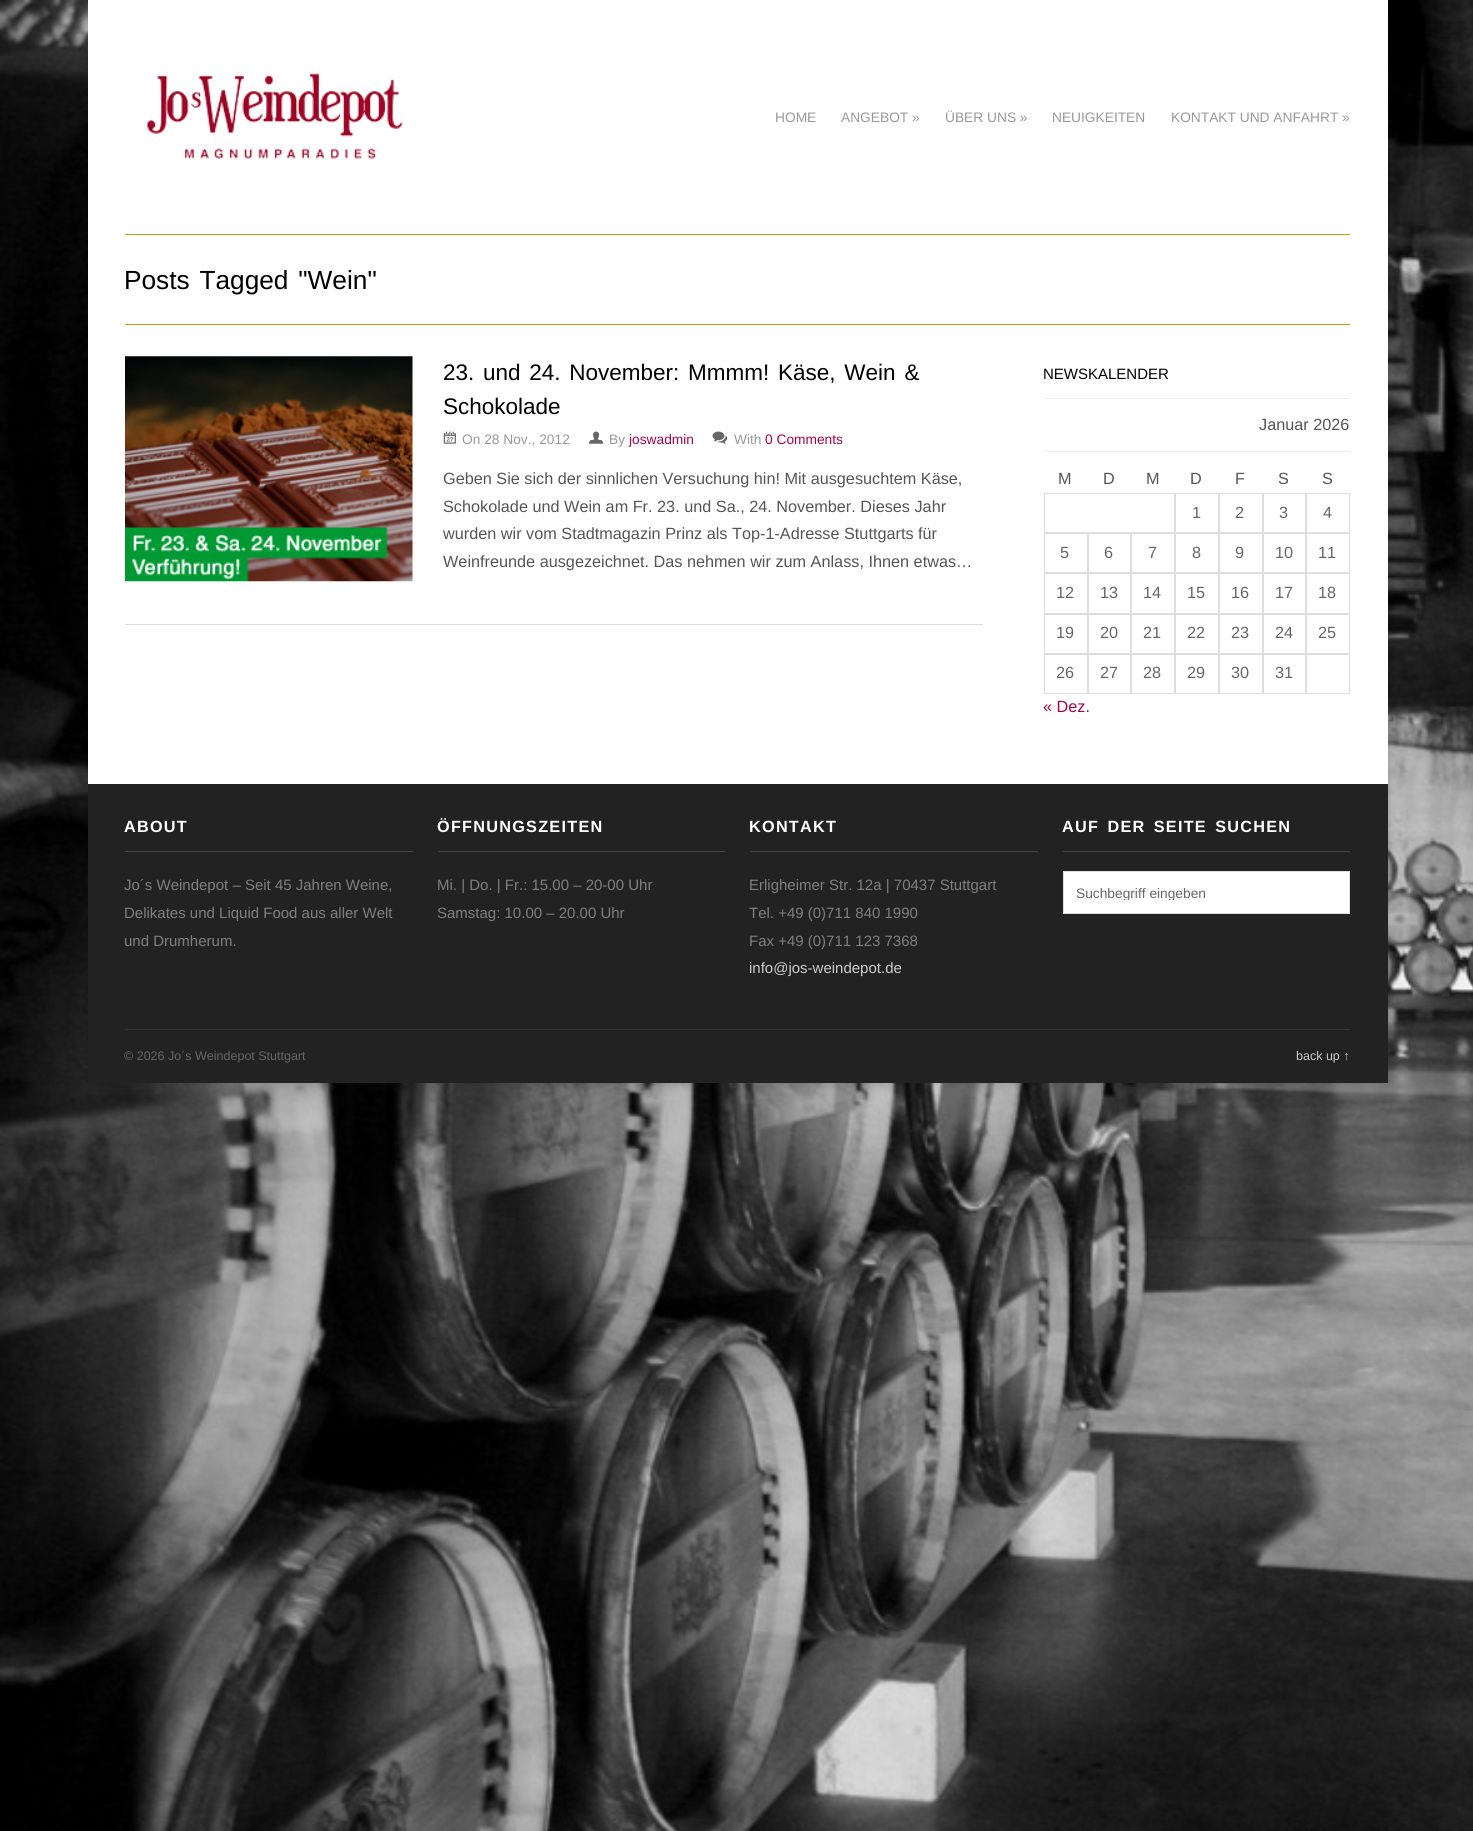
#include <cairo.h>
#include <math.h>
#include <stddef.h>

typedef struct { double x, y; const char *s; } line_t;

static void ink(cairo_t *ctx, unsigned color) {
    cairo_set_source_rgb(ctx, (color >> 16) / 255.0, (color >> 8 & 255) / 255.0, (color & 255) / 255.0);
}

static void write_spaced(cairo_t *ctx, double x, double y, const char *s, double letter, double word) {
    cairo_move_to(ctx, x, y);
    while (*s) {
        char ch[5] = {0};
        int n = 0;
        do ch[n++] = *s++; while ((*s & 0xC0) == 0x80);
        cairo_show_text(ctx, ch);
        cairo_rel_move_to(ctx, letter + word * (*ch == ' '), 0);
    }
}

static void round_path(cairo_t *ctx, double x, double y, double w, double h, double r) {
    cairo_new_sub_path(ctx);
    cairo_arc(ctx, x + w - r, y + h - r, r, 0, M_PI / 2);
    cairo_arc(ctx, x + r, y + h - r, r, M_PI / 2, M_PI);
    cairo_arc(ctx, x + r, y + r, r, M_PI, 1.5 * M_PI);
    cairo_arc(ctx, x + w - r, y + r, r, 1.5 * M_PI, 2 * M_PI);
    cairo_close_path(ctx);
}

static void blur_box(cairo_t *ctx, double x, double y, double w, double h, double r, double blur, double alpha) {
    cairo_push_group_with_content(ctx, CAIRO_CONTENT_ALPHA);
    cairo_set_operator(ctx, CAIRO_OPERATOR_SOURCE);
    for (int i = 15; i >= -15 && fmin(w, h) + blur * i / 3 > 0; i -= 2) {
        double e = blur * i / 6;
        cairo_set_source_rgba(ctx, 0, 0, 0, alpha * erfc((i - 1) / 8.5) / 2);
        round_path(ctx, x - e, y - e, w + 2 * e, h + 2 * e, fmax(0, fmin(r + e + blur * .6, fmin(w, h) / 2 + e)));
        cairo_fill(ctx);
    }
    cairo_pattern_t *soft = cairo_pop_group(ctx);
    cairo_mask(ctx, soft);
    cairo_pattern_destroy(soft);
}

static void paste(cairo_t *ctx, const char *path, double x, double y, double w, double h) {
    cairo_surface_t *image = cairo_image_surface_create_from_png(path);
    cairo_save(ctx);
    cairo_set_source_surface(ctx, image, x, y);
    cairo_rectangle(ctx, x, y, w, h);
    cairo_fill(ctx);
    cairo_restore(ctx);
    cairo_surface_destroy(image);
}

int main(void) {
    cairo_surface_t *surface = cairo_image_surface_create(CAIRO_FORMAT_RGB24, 1473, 1831);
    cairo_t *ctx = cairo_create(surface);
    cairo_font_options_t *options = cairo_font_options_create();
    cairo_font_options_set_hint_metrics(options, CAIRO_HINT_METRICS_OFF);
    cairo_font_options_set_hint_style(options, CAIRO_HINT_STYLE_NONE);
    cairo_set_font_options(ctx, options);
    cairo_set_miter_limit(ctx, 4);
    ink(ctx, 0xFFFFFF);
    cairo_paint(ctx);
    paste(ctx, "media/1.png", 0, 0, 1473, 1831);
    ink(ctx, 0x000000);
    blur_box(ctx, 88, 0, 1300, 1083, 0, 6, 0.2);
    ink(ctx, 0xFFFFFF);
    cairo_rectangle(ctx, 88, 0, 1300, 784);
    cairo_fill(ctx);
    ink(ctx, 0xCC9900);
    cairo_rectangle(ctx, 125, 234, 1225, 1);
    cairo_fill(ctx);
    paste(ctx, "media/2.png", 146, 73, 257, 86);
    cairo_select_font_face(ctx, "Liberation Sans", CAIRO_FONT_SLANT_NORMAL, CAIRO_FONT_WEIGHT_NORMAL);
    cairo_set_font_size(ctx, 13.75);
    ink(ctx, 0x999999);
    {
        static const line_t items[] = {
            {775, 122, "HOME"},
            {841, 122, "ANGEBOT »"},
            {945, 122, "ÜBER UNS »"},
            {1052, 122, "NEUIGKEITEN"},
            {1171, 122, "KONTAKT UND ANFAHRT »"},
        };
        for (size_t i = 0; i < sizeof items / sizeof *items; i++) {
            cairo_move_to(ctx, items[i].x, items[i].y);
            cairo_show_text(ctx, items[i].s);
        }
    }
    ink(ctx, 0xCC9900);
    cairo_rectangle(ctx, 125, 324, 1225, 1);
    cairo_fill(ctx);
    cairo_set_font_size(ctx, 26.25);
    ink(ctx, 0x000000);
    write_spaced(ctx, 124, 289, "Posts Tagged \"Wein\"", 0, 2.5);
    ink(ctx, 0xDDDDDD);
    cairo_rectangle(ctx, 125, 624, 858, 1);
    cairo_fill(ctx);
    paste(ctx, "media/3.png", 125, 356, 288, 226);
    cairo_set_font_size(ctx, 22.5);
    ink(ctx, 0x000000);
    write_spaced(ctx, 443, 380, "23. und 24. November: Mmmm! Käse, Wein &", 0, 2.5);
    cairo_move_to(ctx, 443, 414);
    cairo_show_text(ctx, "Schokolade");
    paste(ctx, "media/4.png", 443, 431, 13, 13);
    cairo_set_font_size(ctx, 13.75);
    ink(ctx, 0x999999);
    cairo_move_to(ctx, 462, 444);
    cairo_show_text(ctx, "On 28 Nov., 2012");
    paste(ctx, "media/5.png", 588, 431, 16, 13);
    cairo_move_to(ctx, 609, 444);
    cairo_show_text(ctx, "By");
    ink(ctx, 0xA9014B);
    cairo_move_to(ctx, 629, 444);
    cairo_show_text(ctx, "joswadmin");
    paste(ctx, "media/6.png", 712, 431, 16, 13);
    ink(ctx, 0x999999);
    cairo_move_to(ctx, 734, 444);
    cairo_show_text(ctx, "With");
    ink(ctx, 0xA9014B);
    cairo_move_to(ctx, 765, 444);
    cairo_show_text(ctx, "0 Comments");
    cairo_set_font_size(ctx, 16.25);
    ink(ctx, 0x555555);
    {
        static const line_t items[] = {
            {443, 484, "Geben Sie sich der sinnlichen Versuchung hin! Mit ausgesuchtem Käse,"},
            {443, 512, "Schokolade und Wein am Fr. 23. und Sa., 24. November. Dieses Jahr"},
            {443, 539, "wurden wir vom Stadtmagazin Prinz als Top-1-Adresse Stuttgarts für"},
            {443, 567, "Weinfreunde ausgezeichnet. Das nehmen wir zum Anlass, Ihnen etwas…"},
        };
        for (size_t i = 0; i < sizeof items / sizeof *items; i++) {
            cairo_move_to(ctx, items[i].x, items[i].y);
            cairo_show_text(ctx, items[i].s);
        }
    }
    ink(ctx, 0xEEEEEE);
    cairo_rectangle(ctx, 1044, 398, 306, 1);
    cairo_fill(ctx);
    cairo_set_font_size(ctx, 15);
    ink(ctx, 0x000000);
    cairo_move_to(ctx, 1043, 379);
    cairo_show_text(ctx, "NEWSKALENDER");
    ink(ctx, 0xEEEEEE);
    cairo_rectangle(ctx, 1044, 451, 306, 1);
    cairo_fill(ctx);
    cairo_set_font_size(ctx, 16.25);
    ink(ctx, 0x555555);
    {
        static const line_t items[] = {
            {1259, 430, "Januar 2026"},
            {1058, 484, "M"},
            {1103, 484, "D"},
            {1146, 484, "M"},
            {1190, 484, "D"},
            {1235, 484, "F"},
            {1278, 484, "S"},
            {1322, 484, "S"},
        };
        for (size_t i = 0; i < sizeof items / sizeof *items; i++) {
            cairo_move_to(ctx, items[i].x, items[i].y);
            cairo_show_text(ctx, items[i].s);
        }
    }
    cairo_rectangle(ctx, 1044.5, 493.5, 130, 39);
    ink(ctx, 0xDDDDDD);
    cairo_set_line_width(ctx, 1);
    cairo_stroke(ctx);
    cairo_rectangle(ctx, 1175.5, 493.5, 43, 39);
    cairo_stroke(ctx);
    ink(ctx, 0x666666);
    cairo_move_to(ctx, 1192, 518);
    cairo_show_text(ctx, "1");
    cairo_rectangle(ctx, 1219.5, 493.5, 43, 39);
    ink(ctx, 0xDDDDDD);
    cairo_stroke(ctx);
    ink(ctx, 0x666666);
    cairo_move_to(ctx, 1235, 518);
    cairo_show_text(ctx, "2");
    cairo_rectangle(ctx, 1263.5, 493.5, 42, 39);
    ink(ctx, 0xDDDDDD);
    cairo_stroke(ctx);
    ink(ctx, 0x666666);
    cairo_move_to(ctx, 1279, 518);
    cairo_show_text(ctx, "3");
    cairo_rectangle(ctx, 1306.5, 493.5, 43, 39);
    ink(ctx, 0xDDDDDD);
    cairo_stroke(ctx);
    ink(ctx, 0x666666);
    cairo_move_to(ctx, 1323, 518);
    cairo_show_text(ctx, "4");
    cairo_rectangle(ctx, 1044.5, 533.5, 43, 39);
    ink(ctx, 0xDDDDDD);
    cairo_stroke(ctx);
    ink(ctx, 0x666666);
    cairo_move_to(ctx, 1060, 558);
    cairo_show_text(ctx, "5");
    cairo_rectangle(ctx, 1088.5, 533.5, 42, 39);
    ink(ctx, 0xDDDDDD);
    cairo_stroke(ctx);
    ink(ctx, 0x666666);
    cairo_move_to(ctx, 1104, 558);
    cairo_show_text(ctx, "6");
    cairo_rectangle(ctx, 1131.5, 533.5, 43, 39);
    ink(ctx, 0xDDDDDD);
    cairo_stroke(ctx);
    ink(ctx, 0x666666);
    cairo_move_to(ctx, 1148, 558);
    cairo_show_text(ctx, "7");
    cairo_rectangle(ctx, 1175.5, 533.5, 43, 39);
    ink(ctx, 0xDDDDDD);
    cairo_stroke(ctx);
    ink(ctx, 0x666666);
    cairo_move_to(ctx, 1192, 558);
    cairo_show_text(ctx, "8");
    cairo_rectangle(ctx, 1219.5, 533.5, 43, 39);
    ink(ctx, 0xDDDDDD);
    cairo_stroke(ctx);
    ink(ctx, 0x666666);
    cairo_move_to(ctx, 1235, 558);
    cairo_show_text(ctx, "9");
    cairo_rectangle(ctx, 1263.5, 533.5, 42, 39);
    ink(ctx, 0xDDDDDD);
    cairo_stroke(ctx);
    ink(ctx, 0x666666);
    cairo_move_to(ctx, 1275, 558);
    cairo_show_text(ctx, "10");
    cairo_rectangle(ctx, 1306.5, 533.5, 43, 39);
    ink(ctx, 0xDDDDDD);
    cairo_stroke(ctx);
    ink(ctx, 0x666666);
    cairo_move_to(ctx, 1318, 558);
    cairo_show_text(ctx, "11");
    cairo_rectangle(ctx, 1044.5, 573.5, 43, 40);
    ink(ctx, 0xDDDDDD);
    cairo_stroke(ctx);
    ink(ctx, 0x666666);
    cairo_move_to(ctx, 1056, 598);
    cairo_show_text(ctx, "12");
    cairo_rectangle(ctx, 1088.5, 573.5, 42, 40);
    ink(ctx, 0xDDDDDD);
    cairo_stroke(ctx);
    ink(ctx, 0x666666);
    cairo_move_to(ctx, 1100, 598);
    cairo_show_text(ctx, "13");
    cairo_rectangle(ctx, 1131.5, 573.5, 43, 40);
    ink(ctx, 0xDDDDDD);
    cairo_stroke(ctx);
    ink(ctx, 0x666666);
    cairo_move_to(ctx, 1143, 598);
    cairo_show_text(ctx, "14");
    cairo_rectangle(ctx, 1175.5, 573.5, 43, 40);
    ink(ctx, 0xDDDDDD);
    cairo_stroke(ctx);
    ink(ctx, 0x666666);
    cairo_move_to(ctx, 1187, 598);
    cairo_show_text(ctx, "15");
    cairo_rectangle(ctx, 1219.5, 573.5, 43, 40);
    ink(ctx, 0xDDDDDD);
    cairo_stroke(ctx);
    ink(ctx, 0x666666);
    cairo_move_to(ctx, 1231, 598);
    cairo_show_text(ctx, "16");
    cairo_rectangle(ctx, 1263.5, 573.5, 42, 40);
    ink(ctx, 0xDDDDDD);
    cairo_stroke(ctx);
    ink(ctx, 0x666666);
    cairo_move_to(ctx, 1275, 598);
    cairo_show_text(ctx, "17");
    cairo_rectangle(ctx, 1306.5, 573.5, 43, 40);
    ink(ctx, 0xDDDDDD);
    cairo_stroke(ctx);
    ink(ctx, 0x666666);
    cairo_move_to(ctx, 1318, 598);
    cairo_show_text(ctx, "18");
    cairo_rectangle(ctx, 1044.5, 614.5, 43, 39);
    ink(ctx, 0xDDDDDD);
    cairo_stroke(ctx);
    ink(ctx, 0x666666);
    cairo_move_to(ctx, 1056, 638);
    cairo_show_text(ctx, "19");
    cairo_rectangle(ctx, 1088.5, 614.5, 42, 39);
    ink(ctx, 0xDDDDDD);
    cairo_stroke(ctx);
    ink(ctx, 0x666666);
    cairo_move_to(ctx, 1100, 638);
    cairo_show_text(ctx, "20");
    cairo_rectangle(ctx, 1131.5, 614.5, 43, 39);
    ink(ctx, 0xDDDDDD);
    cairo_stroke(ctx);
    ink(ctx, 0x666666);
    cairo_move_to(ctx, 1143, 638);
    cairo_show_text(ctx, "21");
    cairo_rectangle(ctx, 1175.5, 614.5, 43, 39);
    ink(ctx, 0xDDDDDD);
    cairo_stroke(ctx);
    ink(ctx, 0x666666);
    cairo_move_to(ctx, 1187, 638);
    cairo_show_text(ctx, "22");
    cairo_rectangle(ctx, 1219.5, 614.5, 43, 39);
    ink(ctx, 0xDDDDDD);
    cairo_stroke(ctx);
    ink(ctx, 0x666666);
    cairo_move_to(ctx, 1231, 638);
    cairo_show_text(ctx, "23");
    cairo_rectangle(ctx, 1263.5, 614.5, 42, 39);
    ink(ctx, 0xDDDDDD);
    cairo_stroke(ctx);
    ink(ctx, 0x666666);
    cairo_move_to(ctx, 1275, 638);
    cairo_show_text(ctx, "24");
    cairo_rectangle(ctx, 1306.5, 614.5, 43, 39);
    ink(ctx, 0xDDDDDD);
    cairo_stroke(ctx);
    ink(ctx, 0x666666);
    cairo_move_to(ctx, 1318, 638);
    cairo_show_text(ctx, "25");
    cairo_rectangle(ctx, 1044.5, 654.5, 43, 39);
    ink(ctx, 0xDDDDDD);
    cairo_stroke(ctx);
    ink(ctx, 0x666666);
    cairo_move_to(ctx, 1056, 678);
    cairo_show_text(ctx, "26");
    cairo_rectangle(ctx, 1088.5, 654.5, 42, 39);
    ink(ctx, 0xDDDDDD);
    cairo_stroke(ctx);
    ink(ctx, 0x666666);
    cairo_move_to(ctx, 1100, 678);
    cairo_show_text(ctx, "27");
    cairo_rectangle(ctx, 1131.5, 654.5, 43, 39);
    ink(ctx, 0xDDDDDD);
    cairo_stroke(ctx);
    ink(ctx, 0x666666);
    cairo_move_to(ctx, 1143, 678);
    cairo_show_text(ctx, "28");
    cairo_rectangle(ctx, 1175.5, 654.5, 43, 39);
    ink(ctx, 0xDDDDDD);
    cairo_stroke(ctx);
    ink(ctx, 0x666666);
    cairo_move_to(ctx, 1187, 678);
    cairo_show_text(ctx, "29");
    cairo_rectangle(ctx, 1219.5, 654.5, 43, 39);
    ink(ctx, 0xDDDDDD);
    cairo_stroke(ctx);
    ink(ctx, 0x666666);
    cairo_move_to(ctx, 1231, 678);
    cairo_show_text(ctx, "30");
    cairo_rectangle(ctx, 1263.5, 654.5, 42, 39);
    ink(ctx, 0xDDDDDD);
    cairo_stroke(ctx);
    ink(ctx, 0x666666);
    cairo_move_to(ctx, 1275, 678);
    cairo_show_text(ctx, "31");
    cairo_rectangle(ctx, 1306.5, 654.5, 43, 39);
    ink(ctx, 0xDDDDDD);
    cairo_stroke(ctx);
    ink(ctx, 0xA9014B);
    cairo_move_to(ctx, 1043, 712);
    cairo_show_text(ctx, "« Dez.");
    ink(ctx, 0x222222);
    cairo_rectangle(ctx, 88, 784, 1300, 299);
    cairo_fill(ctx);
    ink(ctx, 0x444444);
    cairo_rectangle(ctx, 125, 851, 288, 1);
    cairo_fill(ctx);
    cairo_select_font_face(ctx, "Liberation Sans", CAIRO_FONT_SLANT_NORMAL, CAIRO_FONT_WEIGHT_BOLD);
    ink(ctx, 0xFFFFFF);
    write_spaced(ctx, 124, 832, "ABOUT", 1.25, 0);
    cairo_select_font_face(ctx, "Liberation Sans", CAIRO_FONT_SLANT_NORMAL, CAIRO_FONT_WEIGHT_NORMAL);
    cairo_set_font_size(ctx, 15);
    ink(ctx, 0x7F7F7F);
    {
        static const line_t items[] = {
            {124, 890, "Jo´s Weindepot – Seit 45 Jahren Weine,"},
            {124, 918, "Delikates und Liquid Food aus aller Welt"},
            {124, 946, "und Drumherum."},
        };
        for (size_t i = 0; i < sizeof items / sizeof *items; i++) {
            cairo_move_to(ctx, items[i].x, items[i].y);
            cairo_show_text(ctx, items[i].s);
        }
    }
    ink(ctx, 0x444444);
    cairo_rectangle(ctx, 438, 851, 287, 1);
    cairo_fill(ctx);
    cairo_select_font_face(ctx, "Liberation Sans", CAIRO_FONT_SLANT_NORMAL, CAIRO_FONT_WEIGHT_BOLD);
    cairo_set_font_size(ctx, 16.25);
    ink(ctx, 0xFFFFFF);
    write_spaced(ctx, 437, 832, "ÖFFNUNGSZEITEN", 1.25, 0);
    cairo_select_font_face(ctx, "Liberation Sans", CAIRO_FONT_SLANT_NORMAL, CAIRO_FONT_WEIGHT_NORMAL);
    cairo_set_font_size(ctx, 15);
    ink(ctx, 0x7F7F7F);
    cairo_move_to(ctx, 437, 890);
    cairo_show_text(ctx, "Mi. | Do. | Fr.: 15.00 – 20-00 Uhr");
    cairo_move_to(ctx, 437, 918);
    cairo_show_text(ctx, "Samstag: 10.00 – 20.00 Uhr");
    ink(ctx, 0x444444);
    cairo_rectangle(ctx, 750, 851, 288, 1);
    cairo_fill(ctx);
    cairo_select_font_face(ctx, "Liberation Sans", CAIRO_FONT_SLANT_NORMAL, CAIRO_FONT_WEIGHT_BOLD);
    cairo_set_font_size(ctx, 16.25);
    ink(ctx, 0xFFFFFF);
    write_spaced(ctx, 749, 832, "KONTAKT", 1.25, 0);
    cairo_select_font_face(ctx, "Liberation Sans", CAIRO_FONT_SLANT_NORMAL, CAIRO_FONT_WEIGHT_NORMAL);
    cairo_set_font_size(ctx, 15);
    ink(ctx, 0x7F7F7F);
    {
        static const line_t items[] = {
            {749, 890, "Erligheimer Str. 12a | 70437 Stuttgart"},
            {749, 918, "Tel. +49 (0)711 840 1990"},
            {749, 946, "Fax +49 (0)711 123 7368"},
        };
        for (size_t i = 0; i < sizeof items / sizeof *items; i++) {
            cairo_move_to(ctx, items[i].x, items[i].y);
            cairo_show_text(ctx, items[i].s);
        }
    }
    ink(ctx, 0xCCCCCC);
    cairo_move_to(ctx, 749, 973);
    cairo_show_text(ctx, "info@jos-weindepot.de");
    ink(ctx, 0x444444);
    cairo_rectangle(ctx, 1063, 851, 287, 1);
    cairo_fill(ctx);
    cairo_select_font_face(ctx, "Liberation Sans", CAIRO_FONT_SLANT_NORMAL, CAIRO_FONT_WEIGHT_BOLD);
    cairo_set_font_size(ctx, 16.25);
    ink(ctx, 0xFFFFFF);
    write_spaced(ctx, 1062, 832, "AUF DER SEITE SUCHEN", 1.25, 2.5);
    cairo_rectangle(ctx, 1063.5, 871.5, 286, 42);
    cairo_fill_preserve(ctx);
    ink(ctx, 0xDDDDDD);
    cairo_stroke(ctx);
    cairo_save(ctx);
    cairo_rectangle(ctx, 1076, 885, 235, 15);
    cairo_clip(ctx);
    cairo_select_font_face(ctx, "Liberation Sans", CAIRO_FONT_SLANT_NORMAL, CAIRO_FONT_WEIGHT_NORMAL);
    cairo_set_font_size(ctx, 13.75);
    ink(ctx, 0x666666);
    cairo_move_to(ctx, 1076, 898);
    cairo_show_text(ctx, "Suchbegriff eingeben");
    cairo_restore(ctx);
    ink(ctx, 0x333333);
    cairo_rectangle(ctx, 125, 1029, 1225, 1);
    cairo_fill(ctx);
    cairo_select_font_face(ctx, "Liberation Sans", CAIRO_FONT_SLANT_NORMAL, CAIRO_FONT_WEIGHT_NORMAL);
    cairo_set_font_size(ctx, 12.5);
    ink(ctx, 0x666666);
    cairo_move_to(ctx, 124, 1060);
    cairo_show_text(ctx, "© 2026 Jo´s Weindepot Stuttgart");
    ink(ctx, 0xCCCCCC);
    cairo_move_to(ctx, 1296, 1060);
    cairo_show_text(ctx, "back up ↑");
    cairo_surface_write_to_png(surface, "image.png");
    cairo_font_options_destroy(options);
    cairo_destroy(ctx);
    cairo_surface_destroy(surface);
    return 0;
}
